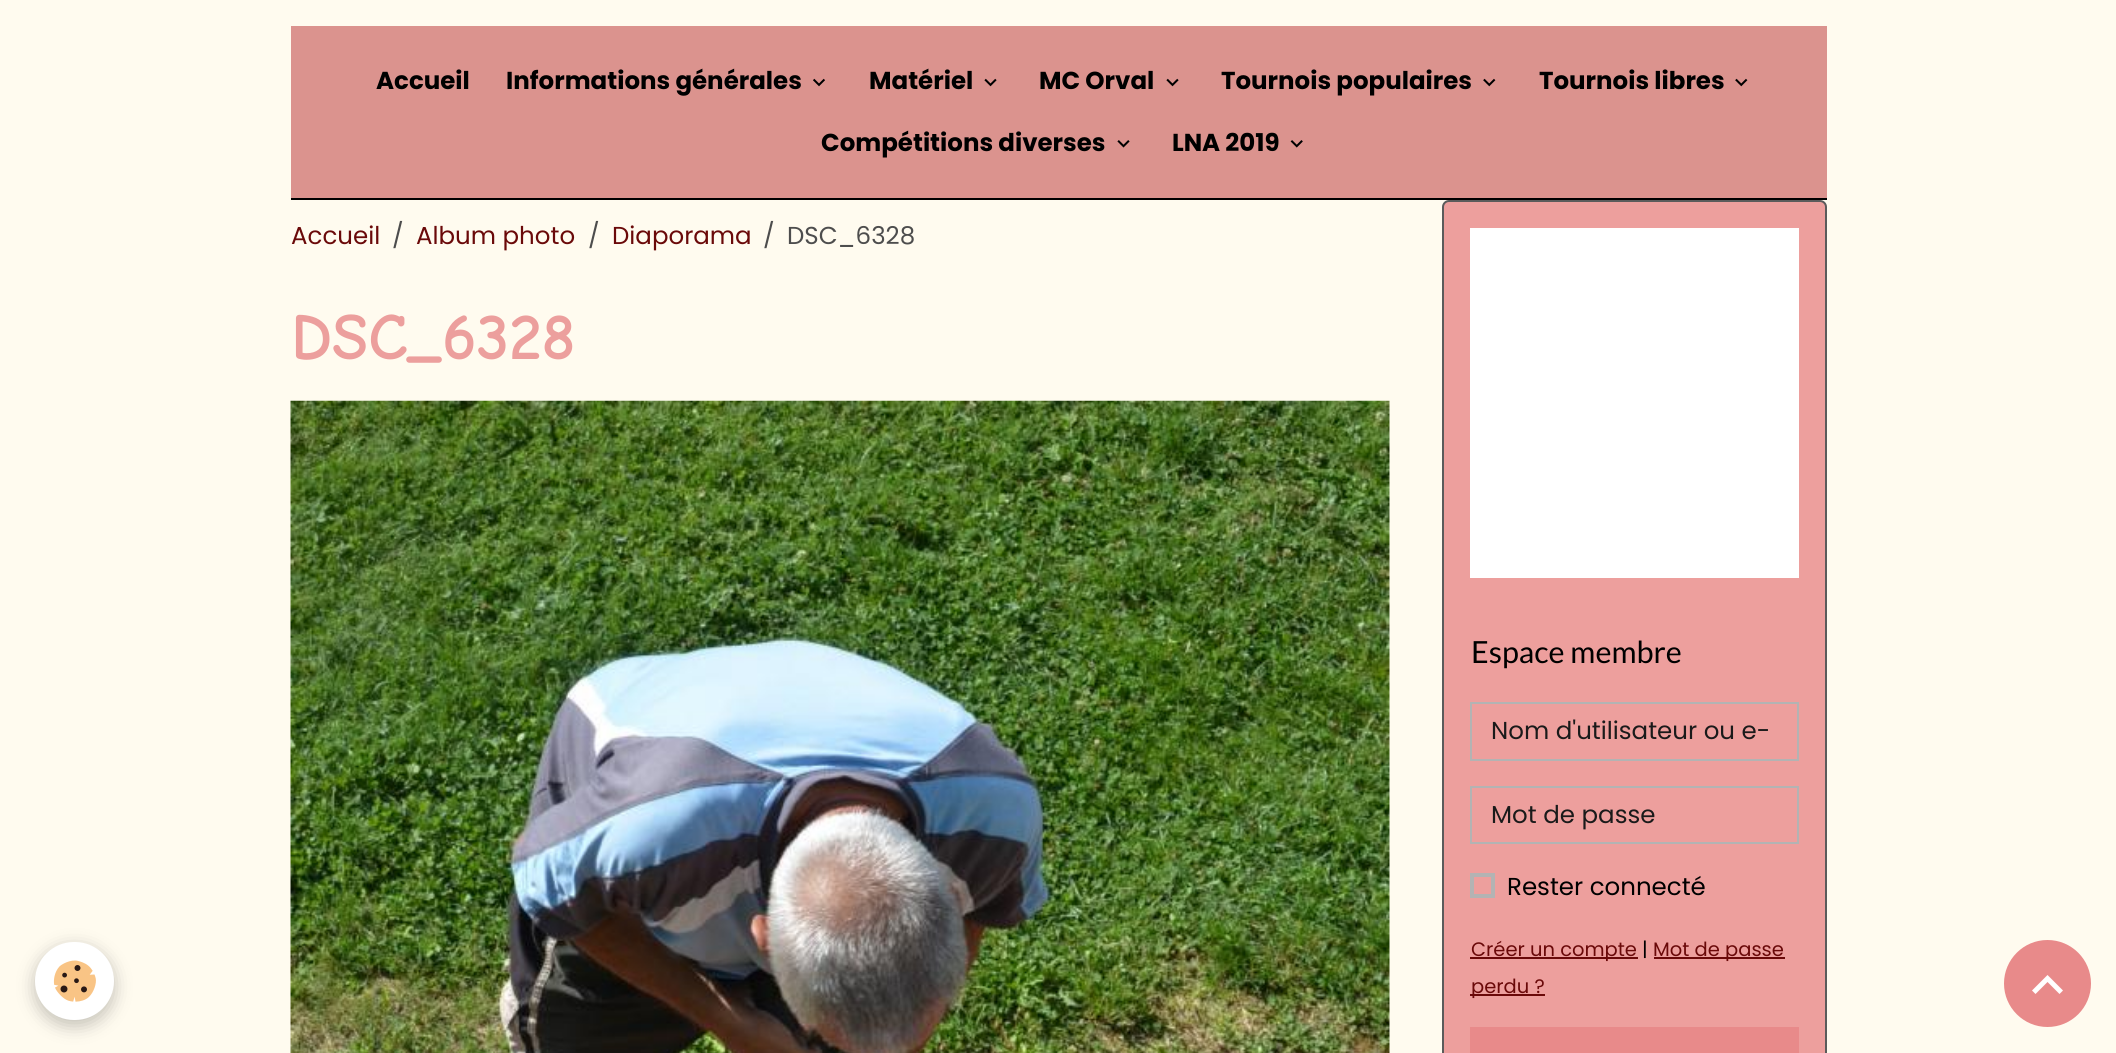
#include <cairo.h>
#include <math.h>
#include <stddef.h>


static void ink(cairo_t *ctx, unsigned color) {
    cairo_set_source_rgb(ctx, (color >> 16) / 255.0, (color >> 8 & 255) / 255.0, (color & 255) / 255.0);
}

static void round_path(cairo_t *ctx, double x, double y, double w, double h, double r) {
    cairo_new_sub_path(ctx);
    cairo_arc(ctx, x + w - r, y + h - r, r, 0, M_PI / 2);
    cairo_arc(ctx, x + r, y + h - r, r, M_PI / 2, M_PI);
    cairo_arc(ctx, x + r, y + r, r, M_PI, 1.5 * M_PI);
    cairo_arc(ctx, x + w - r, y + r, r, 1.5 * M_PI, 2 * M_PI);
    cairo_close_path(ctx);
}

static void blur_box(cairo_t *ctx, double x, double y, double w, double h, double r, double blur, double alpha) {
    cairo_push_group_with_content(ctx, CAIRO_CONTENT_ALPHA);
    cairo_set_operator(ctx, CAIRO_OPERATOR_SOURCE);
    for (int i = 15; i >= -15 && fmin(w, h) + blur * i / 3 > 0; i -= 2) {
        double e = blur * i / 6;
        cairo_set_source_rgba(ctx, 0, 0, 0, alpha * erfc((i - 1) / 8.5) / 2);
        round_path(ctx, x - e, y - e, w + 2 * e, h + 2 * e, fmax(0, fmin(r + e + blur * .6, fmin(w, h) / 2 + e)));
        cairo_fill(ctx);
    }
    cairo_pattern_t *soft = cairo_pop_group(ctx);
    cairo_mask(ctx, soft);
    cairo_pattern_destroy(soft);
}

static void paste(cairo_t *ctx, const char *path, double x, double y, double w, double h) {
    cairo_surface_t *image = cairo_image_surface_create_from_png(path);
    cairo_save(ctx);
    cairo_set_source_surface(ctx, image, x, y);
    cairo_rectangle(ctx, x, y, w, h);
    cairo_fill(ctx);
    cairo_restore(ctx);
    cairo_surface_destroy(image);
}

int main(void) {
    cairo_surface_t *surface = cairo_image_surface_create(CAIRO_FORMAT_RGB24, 2116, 1053);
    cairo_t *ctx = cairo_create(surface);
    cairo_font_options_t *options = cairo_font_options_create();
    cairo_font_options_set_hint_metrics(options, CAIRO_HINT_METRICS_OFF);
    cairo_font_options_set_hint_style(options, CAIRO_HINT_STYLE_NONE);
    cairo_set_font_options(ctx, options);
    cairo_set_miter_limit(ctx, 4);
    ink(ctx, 0xFFFBEF);
    cairo_paint(ctx);
    ink(ctx, 0xDB938E);
    cairo_rectangle(ctx, 291, 26, 1536, 172);
    cairo_fill(ctx);
    ink(ctx, 0x000000);
    cairo_rectangle(ctx, 291, 198, 1536, 2);
    cairo_fill(ctx);
    cairo_select_font_face(ctx, "Poppins", CAIRO_FONT_SLANT_NORMAL, CAIRO_FONT_WEIGHT_BOLD);
    cairo_set_font_size(ctx, 24.5);
    cairo_move_to(ctx, 376, 89);
    cairo_show_text(ctx, "Accueil");
    cairo_move_to(ctx, 506, 89);
    cairo_show_text(ctx, "Informations générales");
    paste(ctx, "media/1.png", 813, 78, 12, 9);
    cairo_move_to(ctx, 869, 89);
    cairo_show_text(ctx, "Matériel");
    paste(ctx, "media/2.png", 984, 78, 13, 9);
    cairo_move_to(ctx, 1039, 89);
    cairo_show_text(ctx, "MC Orval");
    paste(ctx, "media/2.png", 1166, 78, 13, 9);
    cairo_move_to(ctx, 1221, 89);
    cairo_show_text(ctx, "Tournois populaires");
    paste(ctx, "media/3.png", 1483, 78, 13, 9);
    cairo_move_to(ctx, 1539, 89);
    cairo_show_text(ctx, "Tournois libres");
    paste(ctx, "media/3.png", 1735, 78, 13, 9);
    cairo_move_to(ctx, 821, 151);
    cairo_show_text(ctx, "Compétitions diverses");
    paste(ctx, "media/4.png", 1117, 140, 13, 8);
    cairo_move_to(ctx, 1172, 151);
    cairo_show_text(ctx, "LNA 2019");
    paste(ctx, "media/5.png", 1290, 140, 13, 8);
    ink(ctx, 0x000000);
    blur_box(ctx, 35, 947, 79, 79, 39.5, 9, 0.24);
    ink(ctx, 0xFFFFFF);
    round_path(ctx, 35, 942, 79, 78, 39);
    cairo_fill(ctx);
    paste(ctx, "media/6.png", 53, 960, 43, 42);
    cairo_select_font_face(ctx, "Poppins", CAIRO_FONT_SLANT_NORMAL, CAIRO_FONT_WEIGHT_NORMAL);
    ink(ctx, 0x6A0909);
    cairo_move_to(ctx, 291, 244);
    cairo_show_text(ctx, "Accueil");
    ink(ctx, 0x4D4D4D);
    cairo_move_to(ctx, 392, 244);
    cairo_show_text(ctx, "/");
    ink(ctx, 0x6A0909);
    cairo_move_to(ctx, 416, 244);
    cairo_show_text(ctx, "Album photo");
    ink(ctx, 0x4D4D4D);
    cairo_move_to(ctx, 588, 244);
    cairo_show_text(ctx, "/");
    ink(ctx, 0x6A0909);
    cairo_move_to(ctx, 612, 244);
    cairo_show_text(ctx, "Diaporama");
    ink(ctx, 0x4D4D4D);
    cairo_move_to(ctx, 763, 244);
    cairo_show_text(ctx, "/");
    cairo_move_to(ctx, 787, 244);
    cairo_show_text(ctx, "DSC_6328");
    cairo_select_font_face(ctx, "Comic Neue", CAIRO_FONT_SLANT_NORMAL, CAIRO_FONT_WEIGHT_BOLD);
    cairo_set_font_size(ctx, 66);
    ink(ctx, 0xEC9F9D);
    cairo_move_to(ctx, 291, 359);
    cairo_show_text(ctx, "DSC_6328");
    paste(ctx, "media/7.png", 290, 400, 1100, 653);
    ink(ctx, 0xED9F9D);
    round_path(ctx, 1443, 201, 383, 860, 6);
    cairo_fill_preserve(ctx);
    ink(ctx, 0x5B5B5B);
    cairo_stroke(ctx);
    ink(ctx, 0xFFFFFF);
    cairo_rectangle(ctx, 1470, 228, 329, 350);
    cairo_fill(ctx);
    cairo_select_font_face(ctx, "Lato", CAIRO_FONT_SLANT_NORMAL, CAIRO_FONT_WEIGHT_NORMAL);
    cairo_set_font_size(ctx, 30.5);
    ink(ctx, 0x000000);
    cairo_move_to(ctx, 1471, 663);
    cairo_show_text(ctx, "Espace membre");
    cairo_rectangle(ctx, 1471, 703, 327, 57);
    ink(ctx, 0xB3B3B3);
    cairo_stroke(ctx);
    cairo_select_font_face(ctx, "Poppins", CAIRO_FONT_SLANT_NORMAL, CAIRO_FONT_WEIGHT_NORMAL);
    cairo_set_font_size(ctx, 24.5);
    ink(ctx, 0x1A1A1A);
    cairo_move_to(ctx, 1491, 739);
    cairo_show_text(ctx, "Nom d'utilisateur ou e-");
    cairo_rectangle(ctx, 1471, 787, 327, 56);
    ink(ctx, 0xB3B3B3);
    cairo_stroke(ctx);
    ink(ctx, 0x1A1A1A);
    cairo_move_to(ctx, 1491, 823);
    cairo_show_text(ctx, "Mot de passe");
    cairo_rectangle(ctx, 1472, 875, 21, 21);
    ink(ctx, 0xB3B3B3);
    cairo_set_line_width(ctx, 4);
    cairo_stroke(ctx);
    ink(ctx, 0x000000);
    cairo_move_to(ctx, 1507, 895);
    cairo_show_text(ctx, "Rester connecté");
    ink(ctx, 0x6A0909);
    cairo_rectangle(ctx, 1470, 957, 168, 2);
    cairo_fill(ctx);
    cairo_set_font_size(ctx, 19.5);
    cairo_move_to(ctx, 1471, 956);
    cairo_show_text(ctx, "Créer un compte");
    ink(ctx, 0x000000);
    cairo_move_to(ctx, 1642, 956);
    cairo_show_text(ctx, "|");
    ink(ctx, 0x6A0909);
    cairo_rectangle(ctx, 1654, 957, 131, 2);
    cairo_fill(ctx);
    cairo_move_to(ctx, 1653, 956);
    cairo_show_text(ctx, "Mot de passe");
    cairo_rectangle(ctx, 1470, 994, 75, 2);
    cairo_fill(ctx);
    cairo_move_to(ctx, 1471, 993);
    cairo_show_text(ctx, "perdu ?");
    ink(ctx, 0xE88A8A);
    cairo_rectangle(ctx, 1470, 1027, 329, 26);
    cairo_fill(ctx);
    cairo_arc(ctx, 2047.5, 983.5, 43.5, 0, 2 * M_PI);
    cairo_fill(ctx);
    ink(ctx, 0xFFFFFF);
    cairo_new_path(ctx);
    cairo_move_to(ctx, 2047.5, 975);
    cairo_line_to(ctx, 2063, 990.5);
    cairo_line_to(ctx, 2059.5, 994);
    cairo_line_to(ctx, 2047.5, 982);
    cairo_line_to(ctx, 2035.5, 994);
    cairo_line_to(ctx, 2032, 990.5);
    cairo_close_path(ctx);
    cairo_fill(ctx);
    cairo_surface_write_to_png(surface, "image.png");
    cairo_font_options_destroy(options);
    cairo_destroy(ctx);
    cairo_surface_destroy(surface);
    return 0;
}
